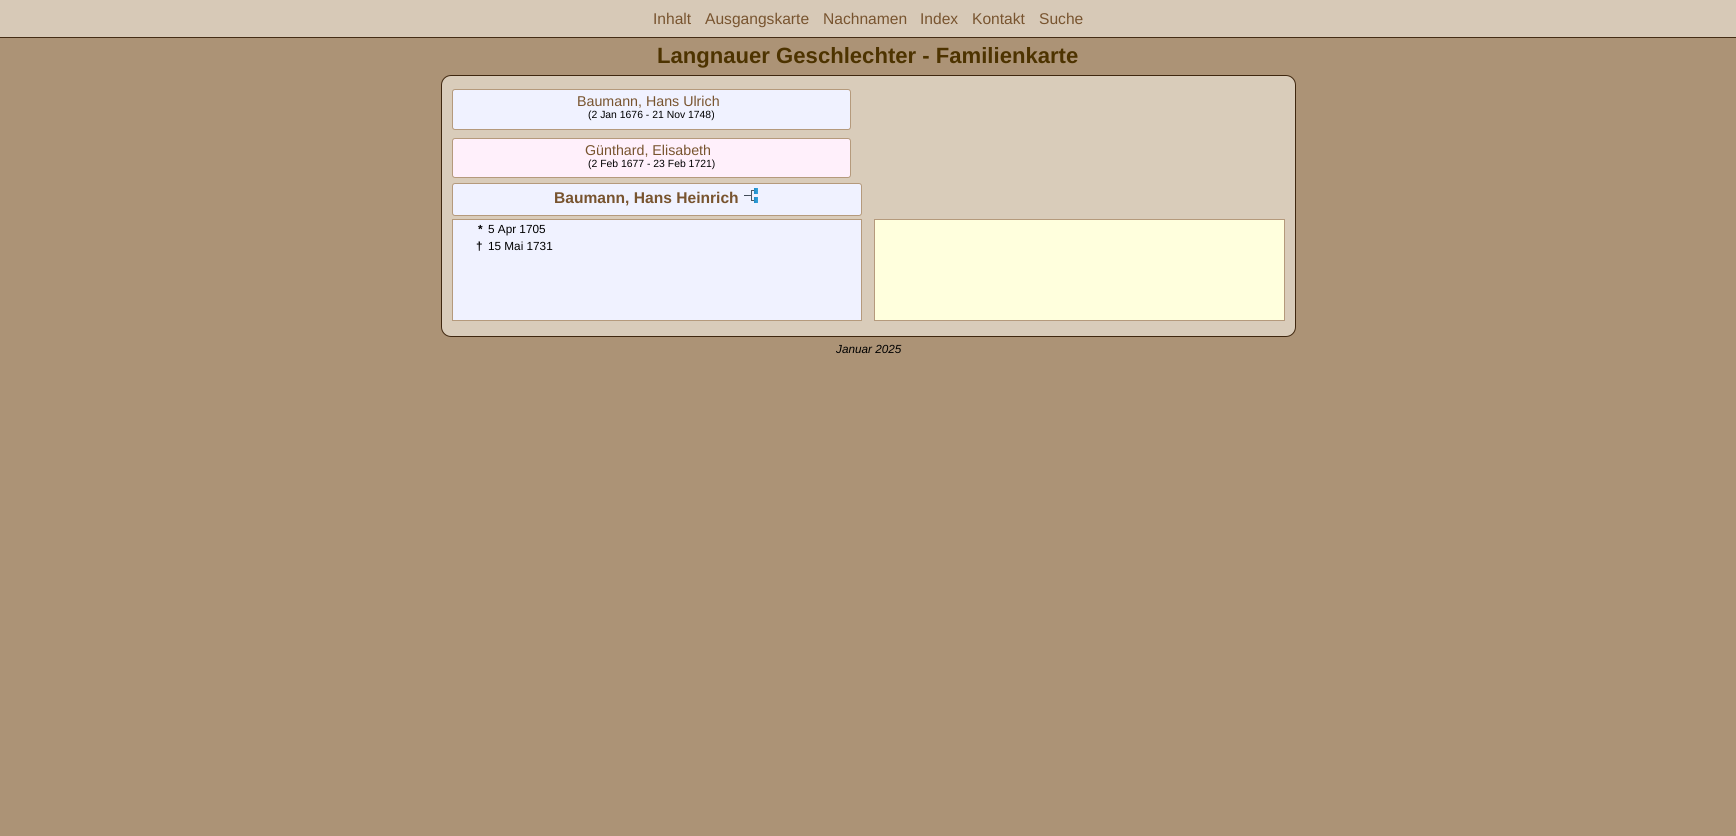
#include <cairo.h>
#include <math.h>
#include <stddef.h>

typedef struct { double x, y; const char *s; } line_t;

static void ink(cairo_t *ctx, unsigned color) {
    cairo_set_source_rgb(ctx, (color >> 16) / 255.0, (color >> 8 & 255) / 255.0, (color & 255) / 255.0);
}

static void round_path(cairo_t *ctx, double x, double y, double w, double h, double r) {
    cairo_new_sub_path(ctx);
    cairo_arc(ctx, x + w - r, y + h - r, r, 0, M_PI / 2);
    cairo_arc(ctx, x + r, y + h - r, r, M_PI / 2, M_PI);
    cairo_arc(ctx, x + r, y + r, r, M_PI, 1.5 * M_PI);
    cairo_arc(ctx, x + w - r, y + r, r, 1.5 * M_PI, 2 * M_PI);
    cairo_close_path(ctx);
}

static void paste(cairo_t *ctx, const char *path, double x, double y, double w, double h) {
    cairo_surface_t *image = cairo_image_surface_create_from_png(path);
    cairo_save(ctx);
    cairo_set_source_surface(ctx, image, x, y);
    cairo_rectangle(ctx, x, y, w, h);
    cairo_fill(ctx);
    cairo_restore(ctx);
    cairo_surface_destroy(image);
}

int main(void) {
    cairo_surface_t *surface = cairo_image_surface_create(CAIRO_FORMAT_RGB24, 1736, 836);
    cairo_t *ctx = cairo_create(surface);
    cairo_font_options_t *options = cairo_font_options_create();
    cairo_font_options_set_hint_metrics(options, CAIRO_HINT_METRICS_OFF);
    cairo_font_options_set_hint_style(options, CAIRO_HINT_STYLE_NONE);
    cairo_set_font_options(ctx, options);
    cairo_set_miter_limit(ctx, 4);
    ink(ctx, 0xAC9376);
    cairo_paint(ctx);
    ink(ctx, 0xD7C9B7);
    cairo_rectangle(ctx, 0, 0, 1736, 37);
    cairo_fill(ctx);
    ink(ctx, 0x442C14);
    cairo_rectangle(ctx, 0, 37, 1736, 1);
    cairo_fill(ctx);
    cairo_select_font_face(ctx, "Liberation Sans", CAIRO_FONT_SLANT_NORMAL, CAIRO_FONT_WEIGHT_NORMAL);
    cairo_set_font_size(ctx, 15.6);
    ink(ctx, 0x78542F);
    {
        static const line_t items[] = {
            {653, 24, "Inhalt"},
            {705, 24, "Ausgangskarte"},
            {823, 24, "Nachnamen"},
            {920, 24, "Index"},
            {972, 24, "Kontakt"},
            {1039, 24, "Suche"},
        };
        for (size_t i = 0; i < sizeof items / sizeof *items; i++) {
            cairo_move_to(ctx, items[i].x, items[i].y);
            cairo_show_text(ctx, items[i].s);
        }
    }
    cairo_select_font_face(ctx, "Liberation Sans", CAIRO_FONT_SLANT_NORMAL, CAIRO_FONT_WEIGHT_BOLD);
    cairo_set_font_size(ctx, 22.1);
    ink(ctx, 0x4D3300);
    cairo_move_to(ctx, 657, 63);
    cairo_show_text(ctx, "Langnauer Geschlechter - Familienkarte");
    ink(ctx, 0xD9CCBA);
    round_path(ctx, 441.5, 75.5, 854, 261, 9.5);
    cairo_fill_preserve(ctx);
    ink(ctx, 0x3F270F);
    cairo_set_line_width(ctx, 1);
    cairo_stroke(ctx);
    ink(ctx, 0xF0F2FF);
    round_path(ctx, 452.5, 89.5, 398, 40, 2.5);
    cairo_fill_preserve(ctx);
    ink(ctx, 0xB59A7C);
    cairo_stroke(ctx);
    cairo_select_font_face(ctx, "Liberation Sans", CAIRO_FONT_SLANT_NORMAL, CAIRO_FONT_WEIGHT_NORMAL);
    cairo_set_font_size(ctx, 14.25);
    ink(ctx, 0x78542F);
    cairo_move_to(ctx, 577, 106);
    cairo_show_text(ctx, "Baumann, Hans Ulrich");
    cairo_set_font_size(ctx, 10.4);
    ink(ctx, 0x000000);
    cairo_move_to(ctx, 588, 118);
    cairo_show_text(ctx, "(2 Jan 1676 - 21 Nov 1748)");
    ink(ctx, 0xFFF0FB);
    round_path(ctx, 452.5, 138.5, 398, 39, 2.5);
    cairo_fill_preserve(ctx);
    ink(ctx, 0xB59A7C);
    cairo_stroke(ctx);
    cairo_set_font_size(ctx, 14.25);
    ink(ctx, 0x78542F);
    cairo_move_to(ctx, 585, 155);
    cairo_show_text(ctx, "Günthard, Elisabeth");
    cairo_set_font_size(ctx, 10.4);
    ink(ctx, 0x000000);
    cairo_move_to(ctx, 588, 167);
    cairo_show_text(ctx, "(2 Feb 1677 - 23 Feb 1721)");
    ink(ctx, 0xF0F2FF);
    round_path(ctx, 452.5, 183.5, 409, 32, 2.5);
    cairo_fill_preserve(ctx);
    ink(ctx, 0xB59A7C);
    cairo_stroke(ctx);
    cairo_select_font_face(ctx, "Liberation Sans", CAIRO_FONT_SLANT_NORMAL, CAIRO_FONT_WEIGHT_BOLD);
    cairo_set_font_size(ctx, 15.6);
    ink(ctx, 0x78542F);
    cairo_move_to(ctx, 554, 203);
    cairo_show_text(ctx, "Baumann, Hans Heinrich");
    paste(ctx, "media/1.png", 744, 188, 14, 15);
    ink(ctx, 0xF0F2FF);
    cairo_rectangle(ctx, 452.5, 219.5, 409, 101);
    cairo_fill_preserve(ctx);
    ink(ctx, 0xB59A7C);
    cairo_stroke(ctx);
    cairo_set_font_size(ctx, 11.75);
    ink(ctx, 0x000000);
    cairo_move_to(ctx, 478, 233);
    cairo_show_text(ctx, "*");
    cairo_select_font_face(ctx, "Liberation Sans", CAIRO_FONT_SLANT_NORMAL, CAIRO_FONT_WEIGHT_NORMAL);
    cairo_move_to(ctx, 488, 233);
    cairo_show_text(ctx, "5 Apr 1705");
    cairo_select_font_face(ctx, "Liberation Sans", CAIRO_FONT_SLANT_NORMAL, CAIRO_FONT_WEIGHT_BOLD);
    cairo_move_to(ctx, 476, 250);
    cairo_show_text(ctx, "†");
    cairo_select_font_face(ctx, "Liberation Sans", CAIRO_FONT_SLANT_NORMAL, CAIRO_FONT_WEIGHT_NORMAL);
    cairo_move_to(ctx, 488, 250);
    cairo_show_text(ctx, "15 Mai 1731");
    ink(ctx, 0xFFFFDD);
    cairo_rectangle(ctx, 874.5, 219.5, 410, 101);
    cairo_fill_preserve(ctx);
    ink(ctx, 0xB59A7C);
    cairo_stroke(ctx);
    cairo_select_font_face(ctx, "Liberation Sans", CAIRO_FONT_SLANT_ITALIC, CAIRO_FONT_WEIGHT_NORMAL);
    ink(ctx, 0x000000);
    cairo_move_to(ctx, 836, 353);
    cairo_show_text(ctx, "Januar 2025");
    cairo_surface_write_to_png(surface, "image.png");
    cairo_font_options_destroy(options);
    cairo_destroy(ctx);
    cairo_surface_destroy(surface);
    return 0;
}
